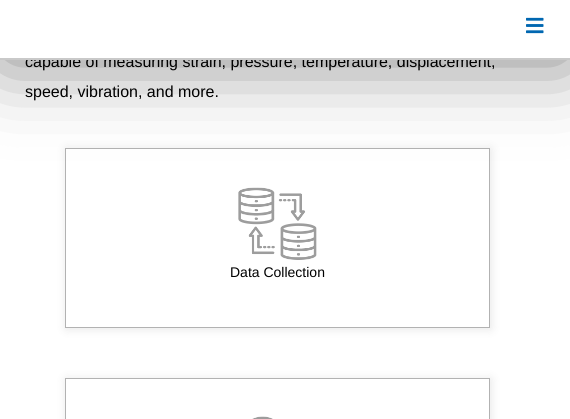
#include <cairo.h>
#include <math.h>
#include <stddef.h>


static void ink(cairo_t *ctx, unsigned color) {
    cairo_set_source_rgb(ctx, (color >> 16) / 255.0, (color >> 8 & 255) / 255.0, (color & 255) / 255.0);
}

static void round_path(cairo_t *ctx, double x, double y, double w, double h, double r) {
    cairo_new_sub_path(ctx);
    cairo_arc(ctx, x + w - r, y + h - r, r, 0, M_PI / 2);
    cairo_arc(ctx, x + r, y + h - r, r, M_PI / 2, M_PI);
    cairo_arc(ctx, x + r, y + r, r, M_PI, 1.5 * M_PI);
    cairo_arc(ctx, x + w - r, y + r, r, 1.5 * M_PI, 2 * M_PI);
    cairo_close_path(ctx);
}

static void blur_box(cairo_t *ctx, double x, double y, double w, double h, double r, double blur, double alpha) {
    cairo_push_group_with_content(ctx, CAIRO_CONTENT_ALPHA);
    cairo_set_operator(ctx, CAIRO_OPERATOR_SOURCE);
    for (int i = 15; i >= -15 && fmin(w, h) + blur * i / 3 > 0; i -= 2) {
        double e = blur * i / 6;
        cairo_set_source_rgba(ctx, 0, 0, 0, alpha * erfc((i - 1) / 8.5) / 2);
        round_path(ctx, x - e, y - e, w + 2 * e, h + 2 * e, fmax(0, fmin(r + e + blur * .6, fmin(w, h) / 2 + e)));
        cairo_fill(ctx);
    }
    cairo_pattern_t *soft = cairo_pop_group(ctx);
    cairo_mask(ctx, soft);
    cairo_pattern_destroy(soft);
}

static void paste(cairo_t *ctx, const char *path, double x, double y, double w, double h) {
    cairo_surface_t *image = cairo_image_surface_create_from_png(path);
    cairo_save(ctx);
    cairo_set_source_surface(ctx, image, x, y);
    cairo_rectangle(ctx, x, y, w, h);
    cairo_fill(ctx);
    cairo_restore(ctx);
    cairo_surface_destroy(image);
}

int main(void) {
    cairo_surface_t *surface = cairo_image_surface_create(CAIRO_FORMAT_RGB24, 570, 419);
    cairo_t *ctx = cairo_create(surface);
    cairo_font_options_t *options = cairo_font_options_create();
    cairo_font_options_set_hint_metrics(options, CAIRO_HINT_METRICS_OFF);
    cairo_font_options_set_hint_style(options, CAIRO_HINT_STYLE_NONE);
    cairo_set_font_options(ctx, options);
    cairo_set_miter_limit(ctx, 4);
    ink(ctx, 0xFFFFFF);
    cairo_paint(ctx);
    cairo_save(ctx);
    cairo_set_fill_rule(ctx, CAIRO_FILL_RULE_EVEN_ODD);
    cairo_new_path(ctx);
    cairo_move_to(ctx, 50, 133);
    cairo_line_to(ctx, 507, 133);
    cairo_line_to(ctx, 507, 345);
    cairo_line_to(ctx, 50, 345);
    cairo_close_path(ctx);
    cairo_move_to(ctx, 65, 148);
    cairo_line_to(ctx, 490, 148);
    cairo_line_to(ctx, 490, 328);
    cairo_line_to(ctx, 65, 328);
    cairo_close_path(ctx);
    cairo_clip(ctx);
    ink(ctx, 0x000000);
    blur_box(ctx, 66, 149, 425, 180, 0, 5, 0.1);
    cairo_restore(ctx);
    cairo_rectangle(ctx, 65.5, 148.5, 424, 179);
    ink(ctx, 0xB2B2B2);
    cairo_set_line_width(ctx, 1);
    cairo_stroke(ctx);
    ink(ctx, 0x000000);
    blur_box(ctx, 1, 1, 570, 60, 0, 40, 0.5);
    cairo_select_font_face(ctx, "Liberation Sans", CAIRO_FONT_SLANT_NORMAL, CAIRO_FONT_WEIGHT_NORMAL);
    cairo_set_font_size(ctx, 16);
    ink(ctx, 0x000000);
    cairo_move_to(ctx, 25, 67);
    cairo_show_text(ctx, "capable of measuring strain, pressure, temperature, displacement,");
    ink(ctx, 0xFFFFFF);
    cairo_rectangle(ctx, 0, 0, 570, 58);
    cairo_fill(ctx);
    ink(ctx, 0xC9C9C9);
    cairo_rectangle(ctx, 0, 58, 570, 2);
    cairo_fill(ctx);
    paste(ctx, "media/1.png", 526, 17, 18, 17);
    ink(ctx, 0x000000);
    cairo_move_to(ctx, 25, 97);
    cairo_show_text(ctx, "speed, vibration, and more.");
    paste(ctx, "media/2.png", 238, 187, 79, 73);
    cairo_set_font_size(ctx, 14);
    cairo_move_to(ctx, 230, 277);
    cairo_show_text(ctx, "Data Collection");
    cairo_save(ctx);
    cairo_set_fill_rule(ctx, CAIRO_FILL_RULE_EVEN_ODD);
    cairo_new_path(ctx);
    cairo_move_to(ctx, 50, 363);
    cairo_line_to(ctx, 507, 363);
    cairo_line_to(ctx, 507, 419);
    cairo_line_to(ctx, 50, 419);
    cairo_close_path(ctx);
    cairo_move_to(ctx, 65, 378);
    cairo_line_to(ctx, 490, 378);
    cairo_line_to(ctx, 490, 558);
    cairo_line_to(ctx, 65, 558);
    cairo_close_path(ctx);
    cairo_clip(ctx);
    ink(ctx, 0x000000);
    blur_box(ctx, 66, 379, 425, 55, 0, 5, 0.1);
    cairo_restore(ctx);
    cairo_rectangle(ctx, 65.5, 378.5, 424, 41);
    ink(ctx, 0xB2B2B2);
    cairo_stroke(ctx);
    paste(ctx, "media/3.png", 252, 416, 21, 3);
    cairo_surface_write_to_png(surface, "image.png");
    cairo_font_options_destroy(options);
    cairo_destroy(ctx);
    cairo_surface_destroy(surface);
    return 0;
}
